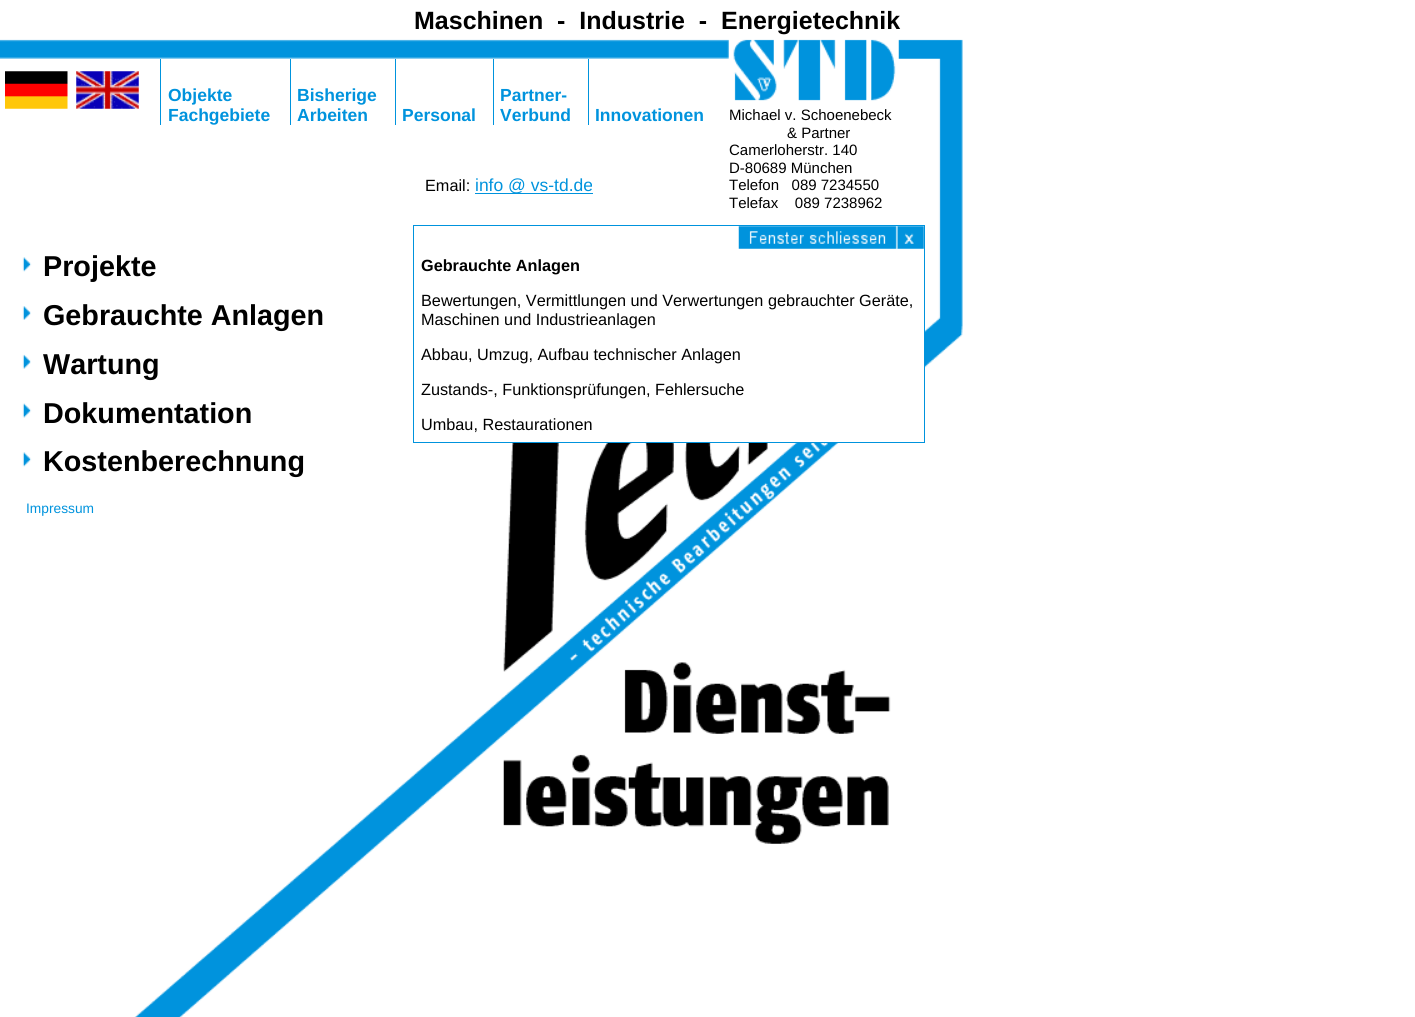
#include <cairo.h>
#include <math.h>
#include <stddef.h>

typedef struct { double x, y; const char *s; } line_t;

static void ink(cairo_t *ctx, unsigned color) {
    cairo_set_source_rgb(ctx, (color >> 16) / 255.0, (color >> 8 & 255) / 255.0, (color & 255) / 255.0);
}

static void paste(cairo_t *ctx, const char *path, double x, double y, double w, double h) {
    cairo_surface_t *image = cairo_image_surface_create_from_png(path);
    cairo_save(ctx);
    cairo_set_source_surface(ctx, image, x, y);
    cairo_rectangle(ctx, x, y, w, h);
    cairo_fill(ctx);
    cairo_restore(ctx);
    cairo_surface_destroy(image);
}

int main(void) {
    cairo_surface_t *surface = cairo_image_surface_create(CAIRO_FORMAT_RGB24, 1415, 1017);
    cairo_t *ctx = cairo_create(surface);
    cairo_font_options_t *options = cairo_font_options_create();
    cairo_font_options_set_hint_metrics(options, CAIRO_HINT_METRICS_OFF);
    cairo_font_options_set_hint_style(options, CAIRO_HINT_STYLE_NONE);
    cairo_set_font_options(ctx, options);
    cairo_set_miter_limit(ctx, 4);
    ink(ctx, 0xFFFFFF);
    cairo_paint(ctx);
    paste(ctx, "media/1.png", 0, 39, 963, 978);
    cairo_select_font_face(ctx, "Liberation Sans", CAIRO_FONT_SLANT_NORMAL, CAIRO_FONT_WEIGHT_BOLD);
    cairo_set_font_size(ctx, 25);
    ink(ctx, 0x000000);
    cairo_move_to(ctx, 414, 29);
    cairo_show_text(ctx, "Maschinen  -  Industrie  -  Energietechnik");
    paste(ctx, "media/2.png", 5, 71, 63, 38);
    paste(ctx, "media/3.png", 76, 71, 63, 38);
    ink(ctx, 0x0093DD);
    cairo_rectangle(ctx, 160, 59, 1, 66);
    cairo_fill(ctx);
    cairo_set_font_size(ctx, 17.5);
    cairo_move_to(ctx, 168, 101);
    cairo_show_text(ctx, "Objekte");
    cairo_move_to(ctx, 168, 121);
    cairo_show_text(ctx, "Fachgebiete");
    cairo_rectangle(ctx, 290, 59, 1, 66);
    cairo_fill(ctx);
    cairo_move_to(ctx, 297, 101);
    cairo_show_text(ctx, "Bisherige");
    cairo_move_to(ctx, 297, 121);
    cairo_show_text(ctx, "Arbeiten");
    cairo_rectangle(ctx, 395, 59, 1, 66);
    cairo_fill(ctx);
    cairo_move_to(ctx, 402, 121);
    cairo_show_text(ctx, "Personal");
    cairo_rectangle(ctx, 493, 59, 1, 66);
    cairo_fill(ctx);
    cairo_move_to(ctx, 500, 101);
    cairo_show_text(ctx, "Partner-");
    cairo_move_to(ctx, 500, 121);
    cairo_show_text(ctx, "Verbund");
    cairo_rectangle(ctx, 588, 59, 1, 66);
    cairo_fill(ctx);
    cairo_move_to(ctx, 595, 121);
    cairo_show_text(ctx, "Innovationen");
    ink(ctx, 0xFFFFFF);
    cairo_rectangle(ctx, 895, 229, 4, 2);
    cairo_fill(ctx);
    cairo_select_font_face(ctx, "Liberation Sans", CAIRO_FONT_SLANT_NORMAL, CAIRO_FONT_WEIGHT_NORMAL);
    cairo_set_font_size(ctx, 15);
    ink(ctx, 0x000000);
    {
        static const line_t items[] = {
            {729, 120, "Michael v. Schoenebeck"},
            {787, 138, "& Partner"},
            {729, 155, "Camerloherstr. 140"},
            {729, 173, "D-80689 München"},
            {729, 190, "Telefon   089 7234550"},
            {729, 208, "Telefax    089 7238962"},
        };
        for (size_t i = 0; i < sizeof items / sizeof *items; i++) {
            cairo_move_to(ctx, items[i].x, items[i].y);
            cairo_show_text(ctx, items[i].s);
        }
    }
    cairo_set_font_size(ctx, 16.25);
    cairo_move_to(ctx, 425, 191);
    cairo_show_text(ctx, "Email:");
    ink(ctx, 0x0093DD);
    cairo_rectangle(ctx, 475, 193, 118, 1);
    cairo_fill(ctx);
    cairo_set_font_size(ctx, 17.5);
    cairo_move_to(ctx, 475, 191);
    cairo_show_text(ctx, "info @ vs-td.de");
    paste(ctx, "media/4.png", 22, 257, 10, 15);
    cairo_select_font_face(ctx, "Liberation Sans", CAIRO_FONT_SLANT_NORMAL, CAIRO_FONT_WEIGHT_BOLD);
    cairo_set_font_size(ctx, 28.75);
    ink(ctx, 0x000000);
    cairo_move_to(ctx, 43, 276);
    cairo_show_text(ctx, "Projekte");
    paste(ctx, "media/5.png", 22, 306, 9, 14);
    cairo_move_to(ctx, 43, 325);
    cairo_show_text(ctx, "Gebrauchte Anlagen");
    paste(ctx, "media/6.png", 22, 354, 9, 15);
    cairo_move_to(ctx, 43, 374);
    cairo_show_text(ctx, "Wartung");
    paste(ctx, "media/7.png", 22, 403, 10, 15);
    cairo_move_to(ctx, 43, 423);
    cairo_show_text(ctx, "Dokumentation");
    paste(ctx, "media/4.png", 22, 452, 10, 15);
    cairo_move_to(ctx, 43, 471);
    cairo_show_text(ctx, "Kostenberechnung");
    ink(ctx, 0xFFFFFF);
    cairo_rectangle(ctx, 447, 231, 477, 211);
    cairo_fill(ctx);
    cairo_rectangle(ctx, 413.5, 225.5, 511, 217);
    ink(ctx, 0x0093DD);
    cairo_set_line_width(ctx, 1);
    cairo_stroke(ctx);
    paste(ctx, "media/8.png", 738, 226, 186, 23);
    cairo_set_font_size(ctx, 16.25);
    ink(ctx, 0x000000);
    cairo_move_to(ctx, 421, 271);
    cairo_show_text(ctx, "Gebrauchte Anlagen");
    cairo_select_font_face(ctx, "Liberation Sans", CAIRO_FONT_SLANT_NORMAL, CAIRO_FONT_WEIGHT_NORMAL);
    {
        static const line_t items[] = {
            {421, 306, "Bewertungen, Vermittlungen und Verwertungen gebrauchter Geräte,"},
            {421, 325, "Maschinen und Industrieanlagen"},
            {421, 360, "Abbau, Umzug, Aufbau technischer Anlagen"},
            {421, 395, "Zustands-, Funktionsprüfungen, Fehlersuche"},
            {421, 430, "Umbau, Restaurationen"},
        };
        for (size_t i = 0; i < sizeof items / sizeof *items; i++) {
            cairo_move_to(ctx, items[i].x, items[i].y);
            cairo_show_text(ctx, items[i].s);
        }
    }
    cairo_set_font_size(ctx, 13.75);
    ink(ctx, 0x0093DD);
    cairo_move_to(ctx, 26, 513);
    cairo_show_text(ctx, "Impressum");
    cairo_surface_write_to_png(surface, "image.png");
    cairo_font_options_destroy(options);
    cairo_destroy(ctx);
    cairo_surface_destroy(surface);
    return 0;
}
